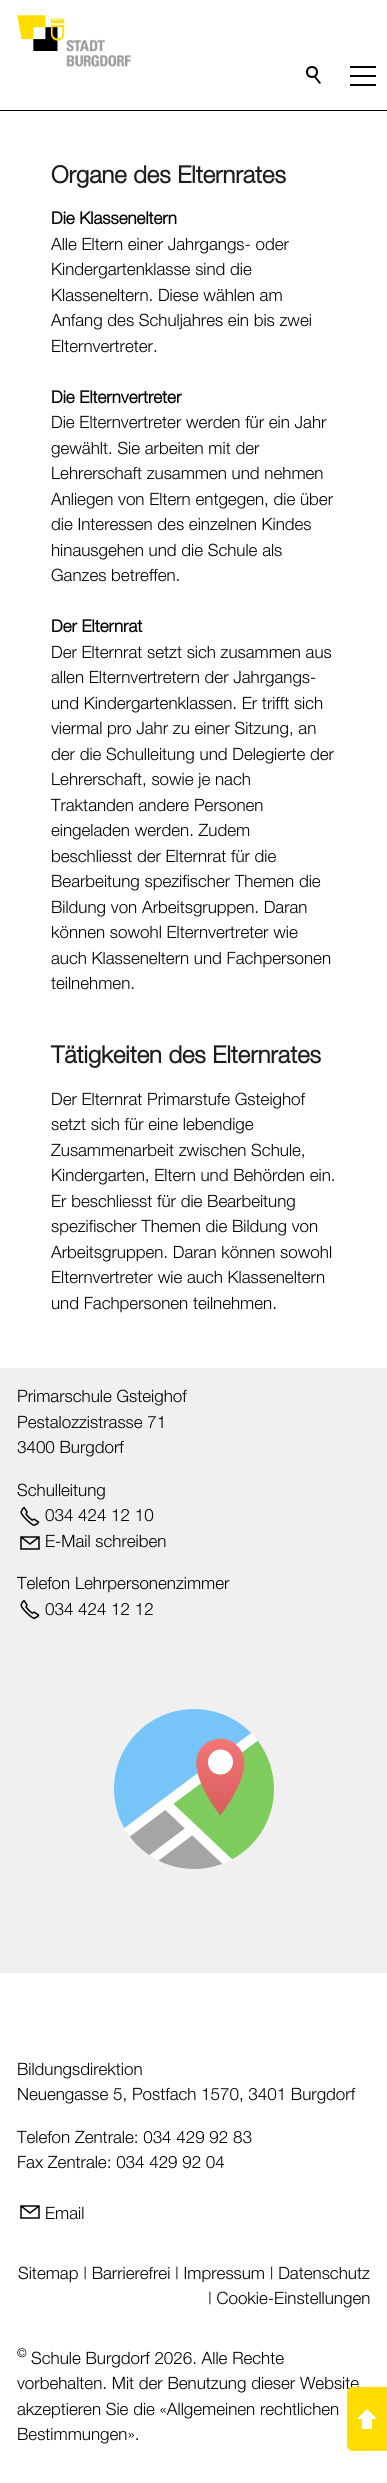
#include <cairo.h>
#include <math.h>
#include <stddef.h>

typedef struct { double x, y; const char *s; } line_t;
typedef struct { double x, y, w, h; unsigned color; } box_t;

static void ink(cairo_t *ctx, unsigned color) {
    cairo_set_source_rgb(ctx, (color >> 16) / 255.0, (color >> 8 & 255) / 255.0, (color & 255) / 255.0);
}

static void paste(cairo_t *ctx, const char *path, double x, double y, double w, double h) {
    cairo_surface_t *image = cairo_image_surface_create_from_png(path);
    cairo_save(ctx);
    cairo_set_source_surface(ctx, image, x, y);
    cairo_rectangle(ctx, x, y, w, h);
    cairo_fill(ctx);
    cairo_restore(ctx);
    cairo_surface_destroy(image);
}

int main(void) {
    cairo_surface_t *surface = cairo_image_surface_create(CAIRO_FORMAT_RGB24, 387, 2483);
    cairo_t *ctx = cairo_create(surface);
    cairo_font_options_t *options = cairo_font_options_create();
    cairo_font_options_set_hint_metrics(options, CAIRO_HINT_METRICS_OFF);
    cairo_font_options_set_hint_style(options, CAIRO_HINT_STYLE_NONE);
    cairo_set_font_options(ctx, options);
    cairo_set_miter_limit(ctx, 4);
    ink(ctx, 0xFFFFFF);
    cairo_paint(ctx);
    paste(ctx, "media/1.png", 17, 15, 114, 52);
    ink(ctx, 0x000000);
    cairo_rectangle(ctx, 0, 110, 387, 1);
    cairo_fill(ctx);
    cairo_arc(ctx, 312, 72, 5, 0, 2 * M_PI);
    cairo_stroke(ctx);
    cairo_new_path(ctx);
    cairo_move_to(ctx, 315.5, 76);
    cairo_line_to(ctx, 321, 83);
    cairo_line_to(ctx, 319.5, 84);
    cairo_line_to(ctx, 314, 77);
    cairo_close_path(ctx);
    cairo_fill(ctx);
    {
        static const box_t items[] = {
            {350, 66, 26, 2, 0x000000},
            {350, 75, 26, 2, 0x000000},
            {350, 84, 26, 2, 0x000000},
        };
        for (size_t i = 0; i < sizeof items / sizeof *items; i++) {
            ink(ctx, items[i].color);
            cairo_rectangle(ctx, items[i].x, items[i].y, items[i].w, items[i].h);
            cairo_fill(ctx);
        }
    }
    cairo_select_font_face(ctx, "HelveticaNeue", CAIRO_FONT_SLANT_NORMAL, CAIRO_FONT_WEIGHT_BOLD);
    cairo_set_font_size(ctx, 23.75);
    ink(ctx, 0x1D1D1D);
    cairo_move_to(ctx, 51, 183);
    cairo_show_text(ctx, "Organe des Elternrates");
    cairo_set_font_size(ctx, 17);
    ink(ctx, 0x000000);
    cairo_move_to(ctx, 51, 224);
    cairo_show_text(ctx, "Die Klasseneltern");
    cairo_select_font_face(ctx, "HelveticaNeue Light", CAIRO_FONT_SLANT_NORMAL, CAIRO_FONT_WEIGHT_NORMAL);
    {
        static const line_t items[] = {
            {51, 250, "Alle Eltern einer Jahrgangs- oder"},
            {51, 275, "Kindergartenklasse sind die"},
            {51, 301, "Klasseneltern. Diese wählen am"},
            {51, 326, "Anfang des Schuljahres ein bis zwei"},
            {51, 352, "Elternvertreter."},
        };
        for (size_t i = 0; i < sizeof items / sizeof *items; i++) {
            cairo_move_to(ctx, items[i].x, items[i].y);
            cairo_show_text(ctx, items[i].s);
        }
    }
    cairo_select_font_face(ctx, "HelveticaNeue", CAIRO_FONT_SLANT_NORMAL, CAIRO_FONT_WEIGHT_BOLD);
    cairo_move_to(ctx, 51, 403);
    cairo_show_text(ctx, "Die Elternvertreter");
    cairo_select_font_face(ctx, "HelveticaNeue Light", CAIRO_FONT_SLANT_NORMAL, CAIRO_FONT_WEIGHT_NORMAL);
    {
        static const line_t items[] = {
            {51, 428, "Die Elternvertreter werden für ein Jahr"},
            {51, 454, "gewählt. Sie arbeiten mit der"},
            {51, 479, "Lehrerschaft zusammen und nehmen"},
            {51, 505, "Anliegen von Eltern entgegen, die über"},
            {51, 530, "die Interessen des einzelnen Kindes"},
            {51, 556, "hinausgehen und die Schule als"},
            {51, 581, "Ganzes betreffen."},
        };
        for (size_t i = 0; i < sizeof items / sizeof *items; i++) {
            cairo_move_to(ctx, items[i].x, items[i].y);
            cairo_show_text(ctx, items[i].s);
        }
    }
    cairo_select_font_face(ctx, "HelveticaNeue", CAIRO_FONT_SLANT_NORMAL, CAIRO_FONT_WEIGHT_BOLD);
    cairo_move_to(ctx, 51, 632);
    cairo_show_text(ctx, "Der Elternrat");
    cairo_select_font_face(ctx, "HelveticaNeue Light", CAIRO_FONT_SLANT_NORMAL, CAIRO_FONT_WEIGHT_NORMAL);
    {
        static const line_t items[] = {
            {51, 658, "Der Elternrat setzt sich zusammen aus"},
            {51, 683, "allen Elternvertretern der Jahrgangs-"},
            {51, 709, "und Kindergartenklassen. Er trifft sich"},
            {51, 734, "viermal pro Jahr zu einer Sitzung, an"},
            {51, 760, "der die Schulleitung und Delegierte der"},
            {51, 785, "Lehrerschaft, sowie je nach"},
            {51, 811, "Traktanden andere Personen"},
            {51, 836, "eingeladen werden. Zudem"},
            {51, 862, "beschliesst der Elternrat für die"},
            {51, 887, "Bearbeitung spezifischer Themen die"},
            {51, 913, "Bildung von Arbeitsgruppen. Daran"},
            {51, 938, "können sowohl Elternvertreter wie"},
            {51, 964, "auch Klasseneltern und Fachpersonen"},
            {51, 989, "teilnehmen."},
        };
        for (size_t i = 0; i < sizeof items / sizeof *items; i++) {
            cairo_move_to(ctx, items[i].x, items[i].y);
            cairo_show_text(ctx, items[i].s);
        }
    }
    cairo_select_font_face(ctx, "HelveticaNeue", CAIRO_FONT_SLANT_NORMAL, CAIRO_FONT_WEIGHT_BOLD);
    cairo_set_font_size(ctx, 23.75);
    ink(ctx, 0x1D1D1D);
    cairo_move_to(ctx, 51, 1063);
    cairo_show_text(ctx, "Tätigkeiten des Elternrates");
    cairo_select_font_face(ctx, "HelveticaNeue Light", CAIRO_FONT_SLANT_NORMAL, CAIRO_FONT_WEIGHT_NORMAL);
    cairo_set_font_size(ctx, 17);
    ink(ctx, 0x000000);
    {
        static const line_t items[] = {
            {51, 1105, "Der Elternrat Primarstufe Gsteighof"},
            {51, 1130, "setzt sich für eine lebendige"},
            {51, 1156, "Zusammenarbeit zwischen Schule,"},
            {51, 1181, "Kindergarten, Eltern und Behörden ein."},
            {51, 1207, "Er beschliesst für die Bearbeitung"},
            {51, 1232, "spezifischer Themen die Bildung von"},
            {51, 1258, "Arbeitsgruppen. Daran können sowohl"},
            {51, 1283, "Elternvertreter wie auch Klasseneltern"},
            {51, 1309, "und Fachpersonen teilnehmen."},
        };
        for (size_t i = 0; i < sizeof items / sizeof *items; i++) {
            cairo_move_to(ctx, items[i].x, items[i].y);
            cairo_show_text(ctx, items[i].s);
        }
    }
    ink(ctx, 0xF0F0F0);
    cairo_rectangle(ctx, 0, 1368, 387, 605);
    cairo_fill(ctx);
    ink(ctx, 0x000000);
    {
        static const line_t items[] = {
            {17, 1402, "Primarschule Gsteighof"},
            {17, 1428, "Pestalozzistrasse 71"},
            {17, 1453, "3400 Burgdorf"},
            {17, 1496, "Schulleitung"},
        };
        for (size_t i = 0; i < sizeof items / sizeof *items; i++) {
            cairo_move_to(ctx, items[i].x, items[i].y);
            cairo_show_text(ctx, items[i].s);
        }
    }
    paste(ctx, "media/2.png", 20, 1506, 20, 20);
    cairo_move_to(ctx, 45, 1521);
    cairo_show_text(ctx, "034 424 12 10");
    cairo_new_path(ctx);
    cairo_move_to(ctx, 21, 1537);
    cairo_line_to(ctx, 39, 1537);
    cairo_line_to(ctx, 39, 1549);
    cairo_line_to(ctx, 21, 1549);
    cairo_close_path(ctx);
    cairo_move_to(ctx, 21, 1537);
    cairo_line_to(ctx, 30, 1544);
    cairo_line_to(ctx, 39, 1537);
    cairo_set_line_width(ctx, 1.5);
    cairo_stroke(ctx);
    cairo_move_to(ctx, 45, 1547);
    cairo_show_text(ctx, "E-Mail schreiben");
    cairo_move_to(ctx, 17, 1589);
    cairo_show_text(ctx, "Telefon Lehrpersonenzimmer");
    paste(ctx, "media/2.png", 20, 1599, 20, 20);
    cairo_move_to(ctx, 45, 1615);
    cairo_show_text(ctx, "034 424 12 12");
    paste(ctx, "media/3.png", 114, 1709, 160, 160);
    {
        static const line_t items[] = {
            {17, 2075, "Bildungsdirektion"},
            {17, 2100, "Neuengasse 5, Postfach 1570, 3401 Burgdorf"},
            {17, 2143, "Telefon Zentrale: 034 429 92 83"},
            {17, 2168, "Fax Zentrale: 034 429 92 04"},
        };
        for (size_t i = 0; i < sizeof items / sizeof *items; i++) {
            cairo_move_to(ctx, items[i].x, items[i].y);
            cairo_show_text(ctx, items[i].s);
        }
    }
    cairo_new_path(ctx);
    cairo_move_to(ctx, 21, 2206);
    cairo_line_to(ctx, 39, 2206);
    cairo_line_to(ctx, 39, 2218);
    cairo_line_to(ctx, 21, 2218);
    cairo_close_path(ctx);
    cairo_move_to(ctx, 21, 2206);
    cairo_line_to(ctx, 30, 2213);
    cairo_line_to(ctx, 39, 2206);
    cairo_stroke(ctx);
    {
        static const line_t items[] = {
            {45, 2219, "Email"},
            {18, 2279, "Sitemap | Barrierefrei | Impressum | Datenschutz"},
            {208, 2304, "| Cookie-Einstellungen"},
        };
        for (size_t i = 0; i < sizeof items / sizeof *items; i++) {
            cairo_move_to(ctx, items[i].x, items[i].y);
            cairo_show_text(ctx, items[i].s);
        }
    }
    cairo_set_font_size(ctx, 12);
    cairo_move_to(ctx, 17, 2357);
    cairo_show_text(ctx, "©");
    cairo_set_font_size(ctx, 17);
    {
        static const line_t items[] = {
            {31, 2364, "Schule Burgdorf 2026. Alle Rechte"},
            {17, 2389, "vorbehalten. Mit der Benutzung dieser Website"},
            {17, 2415, "akzeptieren Sie die «Allgemeinen rechtlichen"},
            {17, 2440, "Bestimmungen»."},
        };
        for (size_t i = 0; i < sizeof items / sizeof *items; i++) {
            cairo_move_to(ctx, items[i].x, items[i].y);
            cairo_show_text(ctx, items[i].s);
        }
    }
    ink(ctx, 0xFFDD00);
    cairo_new_path(ctx);
    cairo_move_to(ctx, 353, 2387);
    cairo_line_to(ctx, 387, 2387);
    cairo_line_to(ctx, 387, 2451);
    cairo_line_to(ctx, 353, 2451);
    cairo_curve_to(ctx, 349.5, 2451, 347, 2448.5, 347, 2445);
    cairo_line_to(ctx, 347, 2393);
    cairo_curve_to(ctx, 347, 2389.5, 349.5, 2387, 353, 2387);
    cairo_close_path(ctx);
    cairo_fill(ctx);
    ink(ctx, 0xFFFFFF);
    cairo_new_path(ctx);
    cairo_move_to(ctx, 377, 2419);
    cairo_line_to(ctx, 357, 2419);
    cairo_line_to(ctx, 367, 2409);
    cairo_close_path(ctx);
    cairo_fill(ctx);
    cairo_rectangle(ctx, 362, 2419, 10, 10);
    cairo_fill(ctx);
    cairo_surface_write_to_png(surface, "image.png");
    cairo_font_options_destroy(options);
    cairo_destroy(ctx);
    cairo_surface_destroy(surface);
    return 0;
}
